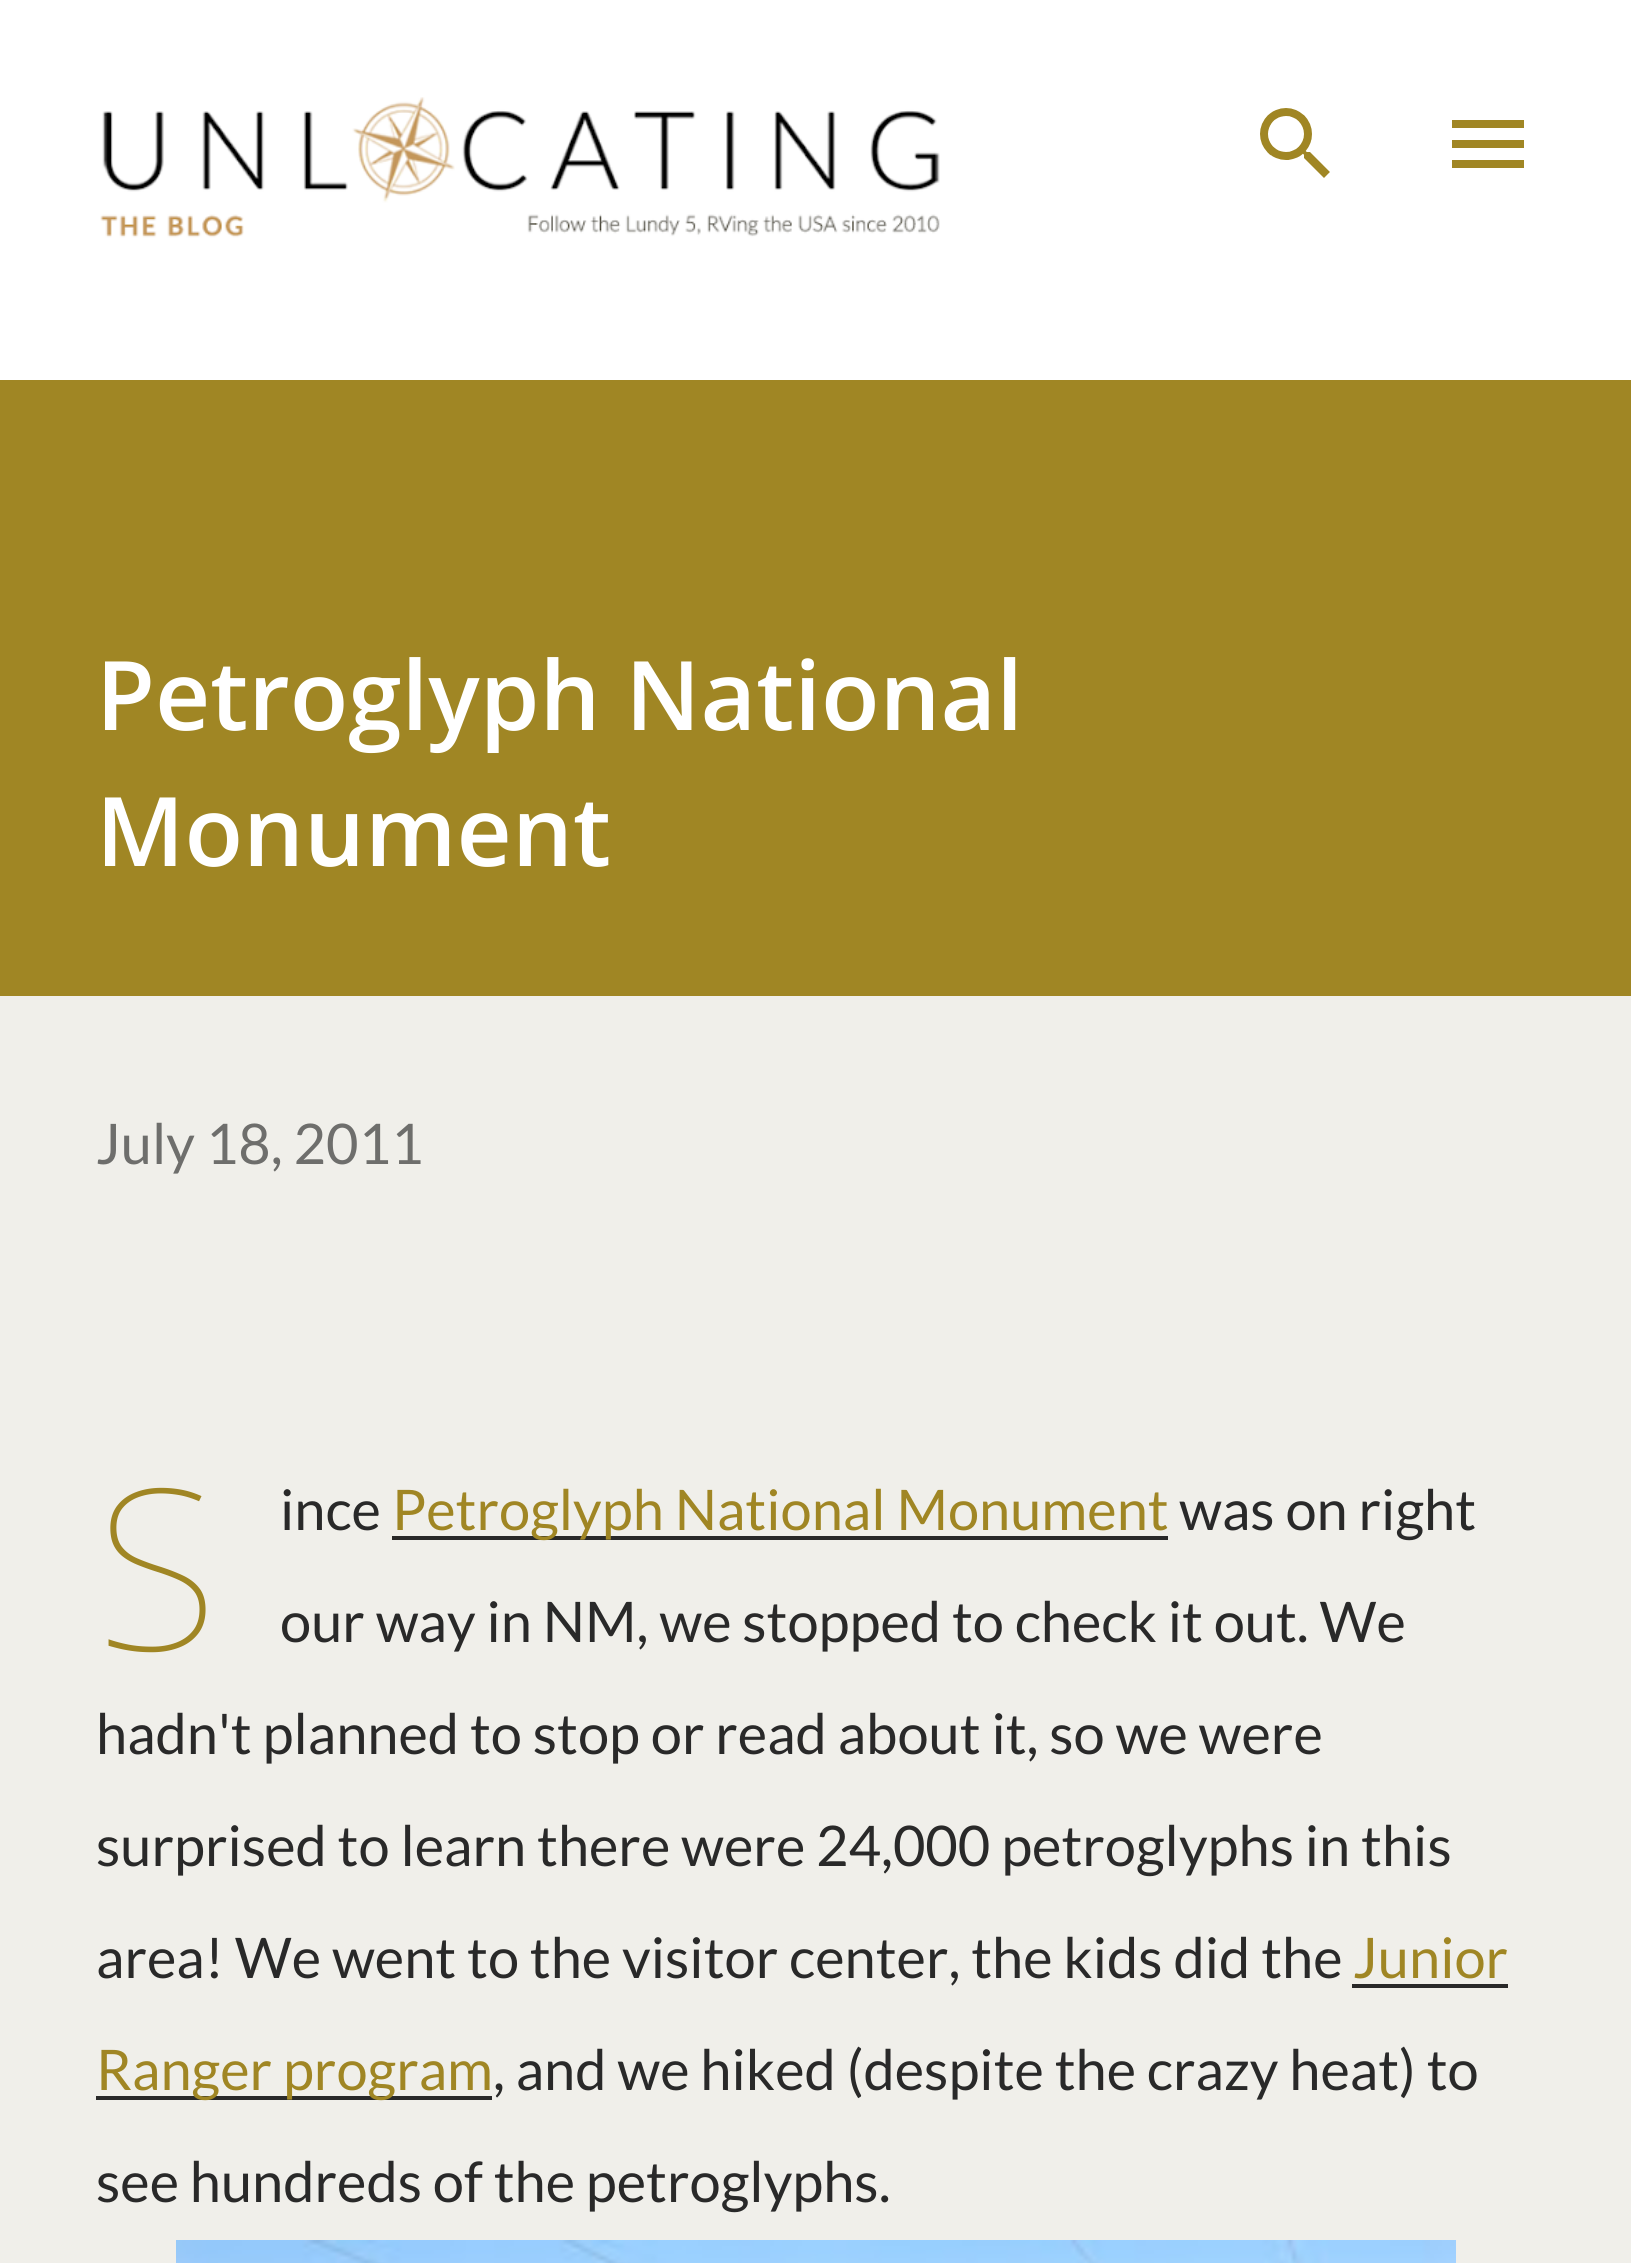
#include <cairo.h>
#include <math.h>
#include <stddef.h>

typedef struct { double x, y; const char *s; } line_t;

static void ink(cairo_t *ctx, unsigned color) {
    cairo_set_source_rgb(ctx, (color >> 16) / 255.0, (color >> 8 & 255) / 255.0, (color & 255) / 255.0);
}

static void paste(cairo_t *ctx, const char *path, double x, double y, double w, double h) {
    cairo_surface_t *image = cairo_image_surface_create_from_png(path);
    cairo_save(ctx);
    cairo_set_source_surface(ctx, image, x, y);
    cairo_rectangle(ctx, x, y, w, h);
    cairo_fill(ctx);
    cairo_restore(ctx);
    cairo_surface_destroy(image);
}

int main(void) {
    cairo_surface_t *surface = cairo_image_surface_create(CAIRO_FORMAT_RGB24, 1631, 2263);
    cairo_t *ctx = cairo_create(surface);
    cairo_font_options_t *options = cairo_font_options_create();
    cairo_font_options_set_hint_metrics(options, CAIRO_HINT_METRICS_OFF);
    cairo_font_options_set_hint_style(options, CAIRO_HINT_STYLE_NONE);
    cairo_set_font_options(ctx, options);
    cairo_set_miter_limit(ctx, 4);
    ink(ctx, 0xF0EFEA);
    cairo_paint(ctx);
    ink(ctx, 0xFFFFFF);
    cairo_rectangle(ctx, 0, 0, 1631, 380);
    cairo_fill(ctx);
    paste(ctx, "media/1.png", 100, 97, 840, 141);
    paste(ctx, "media/2.png", 1260, 108, 70, 70);
    paste(ctx, "media/3.png", 1452, 120, 72, 48);
    ink(ctx, 0xA08624);
    cairo_rectangle(ctx, 0, 380, 1631, 616);
    cairo_fill(ctx);
    cairo_select_font_face(ctx, "Open Sans SemiBold", CAIRO_FONT_SLANT_NORMAL, CAIRO_FONT_WEIGHT_NORMAL);
    cairo_set_font_size(ctx, 96);
    ink(ctx, 0xFFFFFF);
    cairo_move_to(ctx, 96, 730);
    cairo_show_text(ctx, "Petroglyph National");
    cairo_move_to(ctx, 96, 866);
    cairo_show_text(ctx, "Monument");
    cairo_select_font_face(ctx, "Lato", CAIRO_FONT_SLANT_NORMAL, CAIRO_FONT_WEIGHT_NORMAL);
    cairo_set_font_size(ctx, 56);
    ink(ctx, 0x6E6E6C);
    cairo_move_to(ctx, 96, 1164);
    cairo_show_text(ctx, "July 18, 2011");
    cairo_select_font_face(ctx, "Noto Sans Thin", CAIRO_FONT_SLANT_NORMAL, CAIRO_FONT_WEIGHT_NORMAL);
    cairo_set_font_size(ctx, 224);
    ink(ctx, 0xA08624);
    cairo_move_to(ctx, 96, 1650);
    cairo_show_text(ctx, "S");
    cairo_select_font_face(ctx, "Lato", CAIRO_FONT_SLANT_NORMAL, CAIRO_FONT_WEIGHT_NORMAL);
    cairo_set_font_size(ctx, 56);
    ink(ctx, 0x292929);
    cairo_move_to(ctx, 280, 1530);
    cairo_show_text(ctx, "ince");
    cairo_rectangle(ctx, 392, 1536, 776, 4);
    cairo_fill(ctx);
    ink(ctx, 0xA08624);
    cairo_move_to(ctx, 392, 1530);
    cairo_show_text(ctx, "Petroglyph National Monument");
    ink(ctx, 0x292929);
    {
        static const line_t items[] = {
            {1179, 1530, "was on right"},
            {280, 1642, "our way in NM, we stopped to check it out. We"},
            {96, 1754, "hadn't planned to stop or read about it, so we were"},
            {96, 1866, "surprised to learn there were 24,000 petroglyphs in this"},
            {96, 1978, "area! We went to the visitor center, the kids did the"},
        };
        for (size_t i = 0; i < sizeof items / sizeof *items; i++) {
            cairo_move_to(ctx, items[i].x, items[i].y);
            cairo_show_text(ctx, items[i].s);
        }
    }
    ink(ctx, 0xA08624);
    cairo_move_to(ctx, 1353, 1978);
    cairo_show_text(ctx, "Junior");
    ink(ctx, 0x292929);
    cairo_rectangle(ctx, 1352, 1984, 156, 4);
    cairo_fill(ctx);
    cairo_rectangle(ctx, 96, 2096, 396, 4);
    cairo_fill(ctx);
    ink(ctx, 0xA08624);
    cairo_move_to(ctx, 96, 2090);
    cairo_show_text(ctx, "Ranger program");
    ink(ctx, 0x292929);
    cairo_move_to(ctx, 493, 2090);
    cairo_show_text(ctx, ", and we hiked (despite the crazy heat) to");
    cairo_move_to(ctx, 96, 2202);
    cairo_show_text(ctx, "see hundreds of the petroglyphs.");
    paste(ctx, "media/4.png", 176, 2240, 1280, 23);
    cairo_surface_write_to_png(surface, "image.png");
    cairo_font_options_destroy(options);
    cairo_destroy(ctx);
    cairo_surface_destroy(surface);
    return 0;
}
